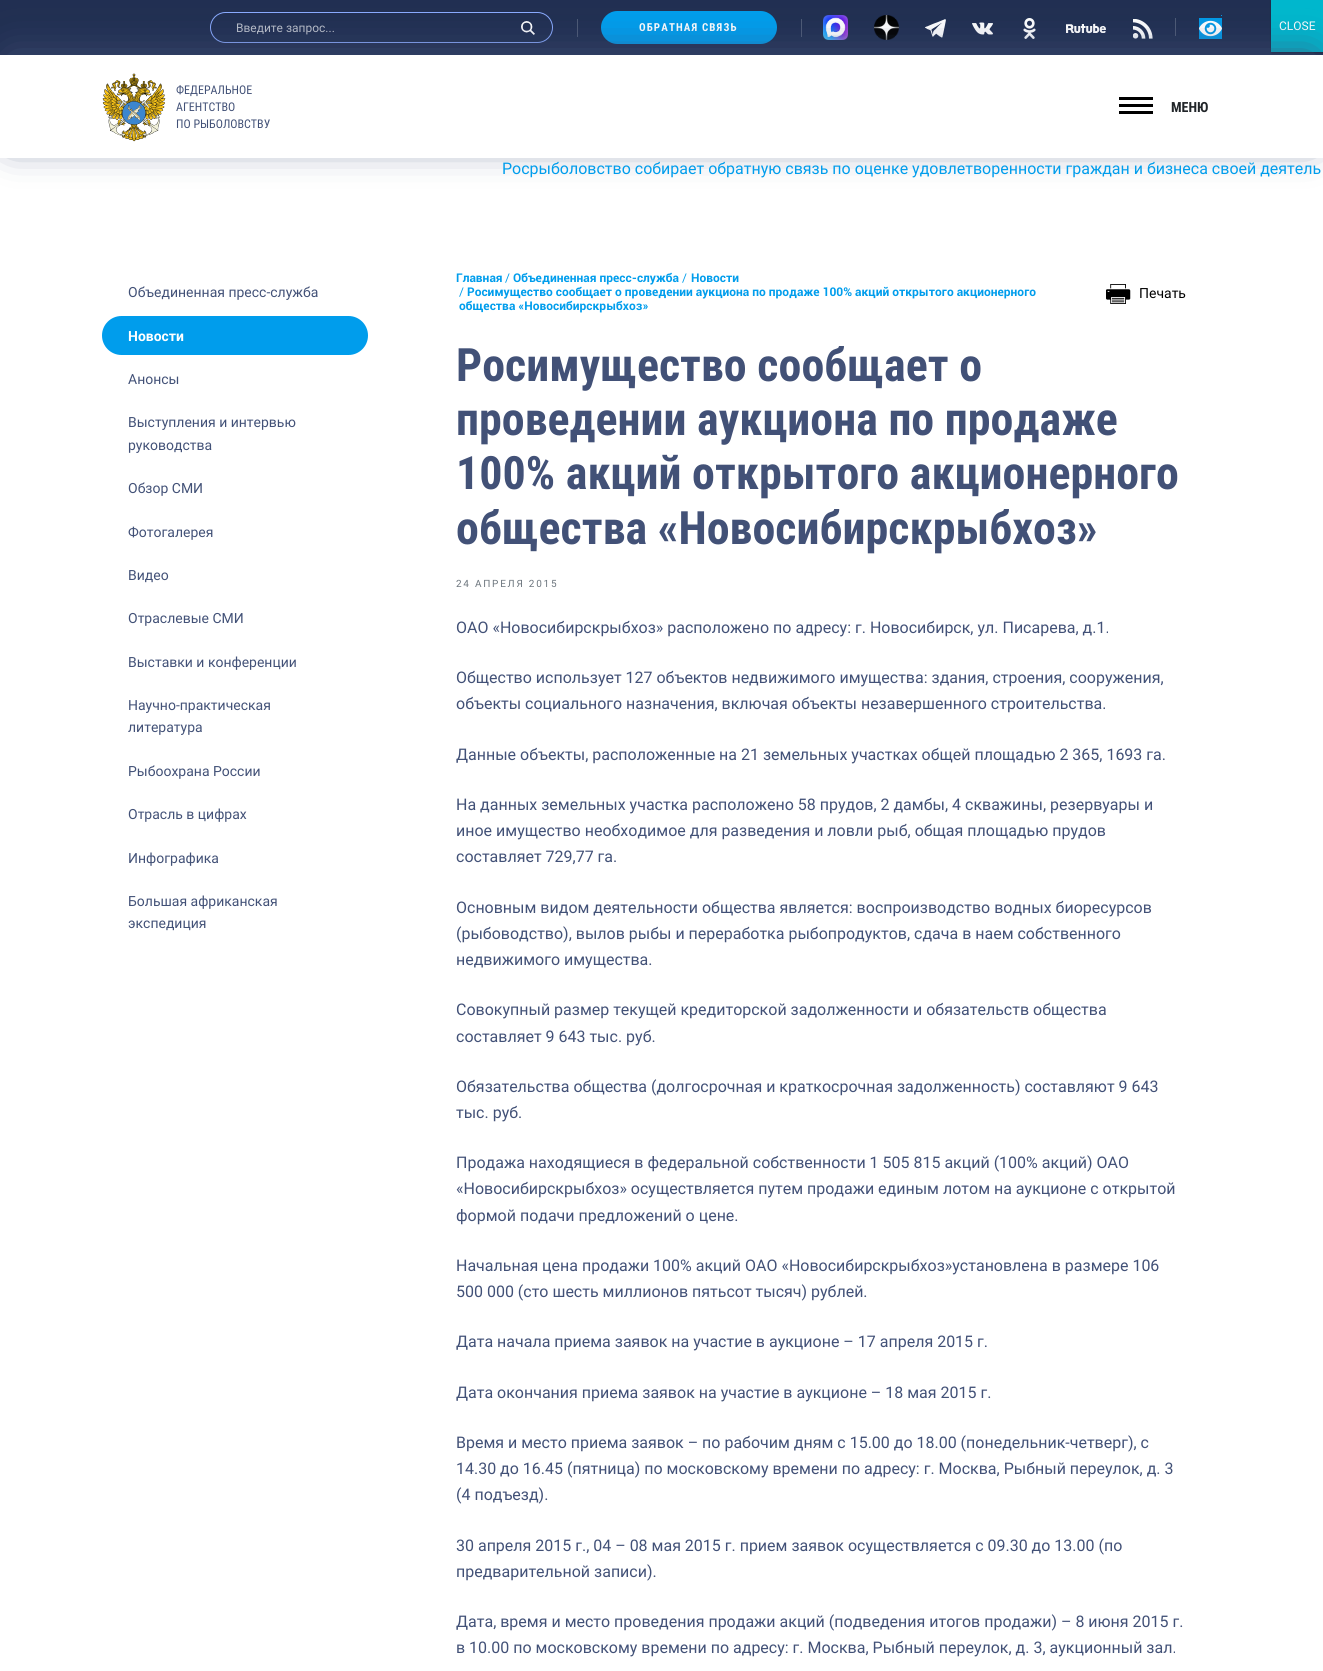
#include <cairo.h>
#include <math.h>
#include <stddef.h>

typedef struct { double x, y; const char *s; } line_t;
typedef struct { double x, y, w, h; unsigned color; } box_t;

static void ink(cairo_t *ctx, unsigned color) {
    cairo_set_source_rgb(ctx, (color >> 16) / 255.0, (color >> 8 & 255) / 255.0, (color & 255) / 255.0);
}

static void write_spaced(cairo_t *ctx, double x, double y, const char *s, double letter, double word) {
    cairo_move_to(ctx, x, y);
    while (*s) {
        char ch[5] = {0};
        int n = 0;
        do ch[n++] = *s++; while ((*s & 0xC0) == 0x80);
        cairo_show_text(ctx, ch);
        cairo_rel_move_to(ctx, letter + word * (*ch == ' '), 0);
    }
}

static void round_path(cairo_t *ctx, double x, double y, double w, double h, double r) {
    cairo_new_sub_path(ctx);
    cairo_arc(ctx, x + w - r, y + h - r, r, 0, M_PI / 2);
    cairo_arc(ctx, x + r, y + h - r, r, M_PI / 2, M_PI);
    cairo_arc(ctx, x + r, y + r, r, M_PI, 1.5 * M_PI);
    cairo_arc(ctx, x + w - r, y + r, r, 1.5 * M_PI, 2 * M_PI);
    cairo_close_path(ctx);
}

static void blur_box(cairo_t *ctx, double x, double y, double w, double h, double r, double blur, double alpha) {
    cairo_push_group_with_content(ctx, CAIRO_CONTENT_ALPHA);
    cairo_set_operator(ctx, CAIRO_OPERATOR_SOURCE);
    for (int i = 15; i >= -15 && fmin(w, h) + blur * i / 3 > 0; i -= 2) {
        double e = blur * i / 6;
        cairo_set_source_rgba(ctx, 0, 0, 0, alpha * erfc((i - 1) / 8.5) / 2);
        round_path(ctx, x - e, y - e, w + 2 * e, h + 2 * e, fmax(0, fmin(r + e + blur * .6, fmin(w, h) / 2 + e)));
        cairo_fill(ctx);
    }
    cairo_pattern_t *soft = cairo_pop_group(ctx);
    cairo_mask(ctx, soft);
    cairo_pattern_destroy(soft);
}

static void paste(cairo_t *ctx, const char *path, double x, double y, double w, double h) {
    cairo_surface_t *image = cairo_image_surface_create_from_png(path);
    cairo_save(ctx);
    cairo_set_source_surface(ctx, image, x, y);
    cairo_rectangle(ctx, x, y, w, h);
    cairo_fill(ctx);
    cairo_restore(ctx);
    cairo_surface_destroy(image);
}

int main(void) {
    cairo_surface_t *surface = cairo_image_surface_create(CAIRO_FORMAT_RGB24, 1323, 1671);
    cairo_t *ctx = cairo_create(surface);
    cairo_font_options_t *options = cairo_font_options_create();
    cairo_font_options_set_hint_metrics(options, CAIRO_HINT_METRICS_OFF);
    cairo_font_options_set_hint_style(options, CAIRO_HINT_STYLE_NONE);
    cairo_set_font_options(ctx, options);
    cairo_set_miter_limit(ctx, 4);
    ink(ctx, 0xFFFFFF);
    cairo_paint(ctx);
    ink(ctx, 0x212F52);
    cairo_rectangle(ctx, 0, 0, 1323, 55);
    cairo_fill(ctx);
    ink(ctx, 0x020202);
    blur_box(ctx, 1272, 1, 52, 52, 0, 1.5, 0.23);
    blur_box(ctx, 1272, 1, 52, 52, 0, 1.5, 0.23);
    ink(ctx, 0x00B7CD);
    cairo_rectangle(ctx, 1271, 0, 52, 52);
    cairo_fill(ctx);
    cairo_select_font_face(ctx, "Roboto", CAIRO_FONT_SLANT_NORMAL, CAIRO_FONT_WEIGHT_NORMAL);
    cairo_set_font_size(ctx, 12);
    ink(ctx, 0xFFFFFF);
    cairo_move_to(ctx, 1279, 30);
    cairo_show_text(ctx, "CLOSE");
    round_path(ctx, 210.5, 12.5, 342, 30, 15);
    ink(ctx, 0x89AAFF);
    cairo_set_line_width(ctx, 1);
    cairo_stroke(ctx);
    ink(ctx, 0xBCC1CB);
    cairo_move_to(ctx, 236, 32);
    cairo_show_text(ctx, "Введите запрос...");
    paste(ctx, "media/1.png", 521, 21, 14, 14);
    ink(ctx, 0x4D5975);
    cairo_rectangle(ctx, 577, 19, 1, 18);
    cairo_fill(ctx);
    ink(ctx, 0x009DEC);
    round_path(ctx, 602, 12, 174, 31, 15.5);
    cairo_fill_preserve(ctx);
    cairo_set_line_width(ctx, 2);
    cairo_stroke(ctx);
    cairo_select_font_face(ctx, "Roboto Condensed", CAIRO_FONT_SLANT_NORMAL, CAIRO_FONT_WEIGHT_BOLD);
    cairo_set_font_size(ctx, 11);
    ink(ctx, 0xFFFFFF);
    write_spaced(ctx, 639, 31, "ОБРАТНАЯ СВЯЗЬ", 1.1, 0);
    ink(ctx, 0x4D5975);
    cairo_rectangle(ctx, 801, 19, 1, 18);
    cairo_fill(ctx);
    paste(ctx, "media/2.png", 823, 15, 25, 25);
    paste(ctx, "media/3.png", 874, 15, 25, 25);
    paste(ctx, "media/4.png", 925, 19, 21, 19);
    paste(ctx, "media/5.png", 972, 22, 21, 13);
    paste(ctx, "media/6.png", 1023, 18, 13, 21);
    paste(ctx, "media/7.png", 1066, 23, 40, 11);
    paste(ctx, "media/8.png", 1133, 19, 20, 20);
    {
        static const box_t items[] = {
            {1175, 18, 1, 18, 0x4D5975},
            {1199, 18, 23, 21, 0x0299E7},
            {1221, 15, 1, 1, 0x0299E7},
        };
        for (size_t i = 0; i < sizeof items / sizeof *items; i++) {
            ink(ctx, items[i].color);
            cairo_rectangle(ctx, items[i].x, items[i].y, items[i].w, items[i].h);
            cairo_fill(ctx);
        }
    }
    paste(ctx, "media/9.png", 1199, 20, 23, 17);
    ink(ctx, 0x425177);
    blur_box(ctx, 11, 58, 1301, 81, 0, 20, 1);
    ink(ctx, 0xFFFFFF);
    cairo_rectangle(ctx, 0, 55, 1323, 103);
    cairo_fill(ctx);
    paste(ctx, "media/10.png", 102, 73, 64, 69);
    cairo_select_font_face(ctx, "Roboto Condensed", CAIRO_FONT_SLANT_NORMAL, CAIRO_FONT_WEIGHT_NORMAL);
    cairo_set_font_size(ctx, 12);
    ink(ctx, 0x425177);
    {
        static const line_t items[] = {
            {176, 94, "ФЕДЕРАЛЬНОЕ"},
            {176, 111, "АГЕНТСТВО"},
            {176, 128, "ПО РЫБОЛОВСТВУ"},
        };
        for (size_t i = 0; i < sizeof items / sizeof *items; i++) {
            cairo_move_to(ctx, items[i].x, items[i].y);
            cairo_show_text(ctx, items[i].s);
        }
    }
    {
        static const box_t items[] = {
            {1119, 97, 34, 3, 0x000000},
            {1119, 104, 34, 3, 0x000000},
            {1119, 111, 34, 3, 0x000000},
        };
        for (size_t i = 0; i < sizeof items / sizeof *items; i++) {
            ink(ctx, items[i].color);
            cairo_rectangle(ctx, items[i].x, items[i].y, items[i].w, items[i].h);
            cairo_fill(ctx);
        }
    }
    cairo_select_font_face(ctx, "Roboto Condensed", CAIRO_FONT_SLANT_NORMAL, CAIRO_FONT_WEIGHT_BOLD);
    cairo_set_font_size(ctx, 14);
    ink(ctx, 0x212529);
    cairo_move_to(ctx, 1171, 112);
    cairo_show_text(ctx, "МЕНЮ");
    cairo_select_font_face(ctx, "Roboto", CAIRO_FONT_SLANT_NORMAL, CAIRO_FONT_WEIGHT_NORMAL);
    cairo_set_font_size(ctx, 16);
    ink(ctx, 0x009DEC);
    cairo_move_to(ctx, 502, 174);
    cairo_show_text(ctx, "Росрыболовство собирает обратную связь по оценке удовлетворенности граждан и бизнеса своей деятель");
    cairo_set_font_size(ctx, 14);
    ink(ctx, 0x425177);
    cairo_move_to(ctx, 128, 297);
    cairo_show_text(ctx, "Объединенная пресс-служба");
    ink(ctx, 0x009DEC);
    round_path(ctx, 102, 316, 266, 39, 19.5);
    cairo_fill(ctx);
    cairo_select_font_face(ctx, "Roboto", CAIRO_FONT_SLANT_NORMAL, CAIRO_FONT_WEIGHT_BOLD);
    ink(ctx, 0xFFFFFF);
    cairo_move_to(ctx, 128, 341);
    cairo_show_text(ctx, "Новости");
    cairo_select_font_face(ctx, "Roboto", CAIRO_FONT_SLANT_NORMAL, CAIRO_FONT_WEIGHT_NORMAL);
    ink(ctx, 0x425177);
    {
        static const line_t items[] = {
            {128, 384, "Анонсы"},
            {128, 427, "Выступления и интервью"},
            {128, 450, "руководства"},
            {128, 493, "Обзор СМИ"},
            {128, 537, "Фотогалерея"},
            {128, 580, "Видео"},
            {128, 623, "Отраслевые СМИ"},
            {128, 667, "Выставки и конференции"},
            {128, 710, "Научно-практическая"},
            {128, 732, "литература"},
            {128, 776, "Рыбоохрана России"},
            {128, 819, "Отрасль в цифрах"},
            {128, 863, "Инфографика"},
            {128, 906, "Большая африканская"},
            {128, 928, "экспедиция"},
        };
        for (size_t i = 0; i < sizeof items / sizeof *items; i++) {
            cairo_move_to(ctx, items[i].x, items[i].y);
            cairo_show_text(ctx, items[i].s);
        }
    }
    cairo_select_font_face(ctx, "Roboto", CAIRO_FONT_SLANT_NORMAL, CAIRO_FONT_WEIGHT_BOLD);
    cairo_set_font_size(ctx, 12);
    ink(ctx, 0x009DEC);
    cairo_move_to(ctx, 456, 282);
    cairo_show_text(ctx, "Главная");
    cairo_select_font_face(ctx, "Roboto", CAIRO_FONT_SLANT_NORMAL, CAIRO_FONT_WEIGHT_NORMAL);
    cairo_move_to(ctx, 505, 282);
    cairo_show_text(ctx, "/");
    cairo_select_font_face(ctx, "Roboto", CAIRO_FONT_SLANT_NORMAL, CAIRO_FONT_WEIGHT_BOLD);
    cairo_move_to(ctx, 513, 282);
    cairo_show_text(ctx, "Объединенная пресс-служба");
    cairo_select_font_face(ctx, "Roboto", CAIRO_FONT_SLANT_NORMAL, CAIRO_FONT_WEIGHT_NORMAL);
    cairo_move_to(ctx, 682, 282);
    cairo_show_text(ctx, "/");
    cairo_select_font_face(ctx, "Roboto", CAIRO_FONT_SLANT_NORMAL, CAIRO_FONT_WEIGHT_BOLD);
    cairo_move_to(ctx, 691, 282);
    cairo_show_text(ctx, "Новости");
    cairo_select_font_face(ctx, "Roboto", CAIRO_FONT_SLANT_NORMAL, CAIRO_FONT_WEIGHT_NORMAL);
    cairo_move_to(ctx, 459, 296);
    cairo_show_text(ctx, "/");
    cairo_select_font_face(ctx, "Roboto", CAIRO_FONT_SLANT_NORMAL, CAIRO_FONT_WEIGHT_BOLD);
    cairo_move_to(ctx, 467, 296);
    cairo_show_text(ctx, "Росимущество сообщает о проведении аукциона по продаже 100% акций открытого акционерного");
    cairo_move_to(ctx, 459, 310);
    cairo_show_text(ctx, "общества «Новосибирскрыбхоз»");
    paste(ctx, "media/11.png", 1106, 284, 25, 20);
    cairo_select_font_face(ctx, "Roboto", CAIRO_FONT_SLANT_NORMAL, CAIRO_FONT_WEIGHT_NORMAL);
    cairo_set_font_size(ctx, 14);
    ink(ctx, 0x000000);
    cairo_move_to(ctx, 1139, 298);
    cairo_show_text(ctx, "Печать");
    cairo_select_font_face(ctx, "Roboto Condensed", CAIRO_FONT_SLANT_NORMAL, CAIRO_FONT_WEIGHT_BOLD);
    cairo_set_font_size(ctx, 46);
    ink(ctx, 0x425177);
    {
        static const line_t items[] = {
            {456, 381, "Росимущество сообщает о"},
            {456, 435, "проведении аукциона по продаже"},
            {456, 489, "100% акций открытого акционерного"},
            {456, 544, "общества «Новосибирскрыбхоз»"},
        };
        for (size_t i = 0; i < sizeof items / sizeof *items; i++) {
            cairo_move_to(ctx, items[i].x, items[i].y);
            cairo_show_text(ctx, items[i].s);
        }
    }
    cairo_select_font_face(ctx, "Roboto", CAIRO_FONT_SLANT_NORMAL, CAIRO_FONT_WEIGHT_NORMAL);
    cairo_set_font_size(ctx, 10);
    ink(ctx, 0x6C757D);
    write_spaced(ctx, 456, 587, "24 АПРЕЛЯ 2015", 1.75, 0);
    cairo_set_font_size(ctx, 16);
    ink(ctx, 0x425177);
    {
        static const line_t items[] = {
            {456, 633, "ОАО «Новосибирскрыбхоз» расположено по адресу: г. Новосибирск, ул. Писарева, д.1."},
            {456, 683, "Общество использует 127 объектов недвижимого имущества: здания, строения, сооружения,"},
            {456, 709, "объекты социального назначения, включая объекты незавершенного строительства."},
            {456, 760, "Данные объекты, расположенные на 21 земельных участках общей площадью 2 365, 1693 га."},
            {456, 810, "На данных земельных участка расположено 58 прудов, 2 дамбы, 4 скважины, резервуары и"},
            {456, 836, "иное имущество необходимое для разведения и ловли рыб, общая площадью прудов"},
            {456, 862, "составляет 729,77 га."},
            {456, 913, "Основным видом деятельности общества является: воспроизводство водных биоресурсов"},
            {456, 939, "(рыбоводство), вылов рыбы и переработка рыбопродуктов, сдача в наем собственного"},
            {456, 965, "недвижимого имущества."},
            {456, 1015, "Совокупный размер текущей кредиторской задолженности и обязательств общества"},
            {456, 1042, "составляет 9 643 тыс. руб."},
            {456, 1092, "Обязательства общества (долгосрочная и краткосрочная задолженность) составляют 9 643"},
            {456, 1118, "тыс. руб."},
            {456, 1168, "Продажа находящиеся в федеральной собственности 1 505 815 акций (100% акций) ОАО"},
            {456, 1194, "«Новосибирскрыбхоз» осуществляется путем продажи единым лотом на аукционе с открытой"},
            {456, 1221, "формой подачи предложений о цене."},
            {456, 1271, "Начальная цена продажи 100% акций ОАО «Новосибирскрыбхоз»установлена в размере 106"},
            {456, 1297, "500 000 (сто шесть миллионов пятьсот тысяч) рублей."},
            {456, 1347, "Дата начала приема заявок на участие в аукционе – 17 апреля 2015 г."},
            {456, 1398, "Дата окончания приема заявок на участие в аукционе – 18 мая 2015 г."},
            {456, 1448, "Время и место приема заявок – по рабочим дням с 15.00 до 18.00 (понедельник-четверг), с"},
            {456, 1474, "14.30 до 16.45 (пятница) по московскому времени по адресу: г. Москва, Рыбный переулок, д. 3"},
            {456, 1500, "(4 подъезд)."},
            {456, 1551, "30 апреля 2015 г., 04 – 08 мая 2015 г. прием заявок осуществляется с 09.30 до 13.00 (по"},
            {456, 1577, "предварительной записи)."},
            {456, 1627, "Дата, время и место проведения продажи акций (подведения итогов продажи) – 8 июня 2015 г."},
            {456, 1653, "в 10.00 по московскому времени по адресу: г. Москва, Рыбный переулок, д. 3, аукционный зал."},
        };
        for (size_t i = 0; i < sizeof items / sizeof *items; i++) {
            cairo_move_to(ctx, items[i].x, items[i].y);
            cairo_show_text(ctx, items[i].s);
        }
    }
    cairo_surface_write_to_png(surface, "image.png");
    cairo_font_options_destroy(options);
    cairo_destroy(ctx);
    cairo_surface_destroy(surface);
    return 0;
}
